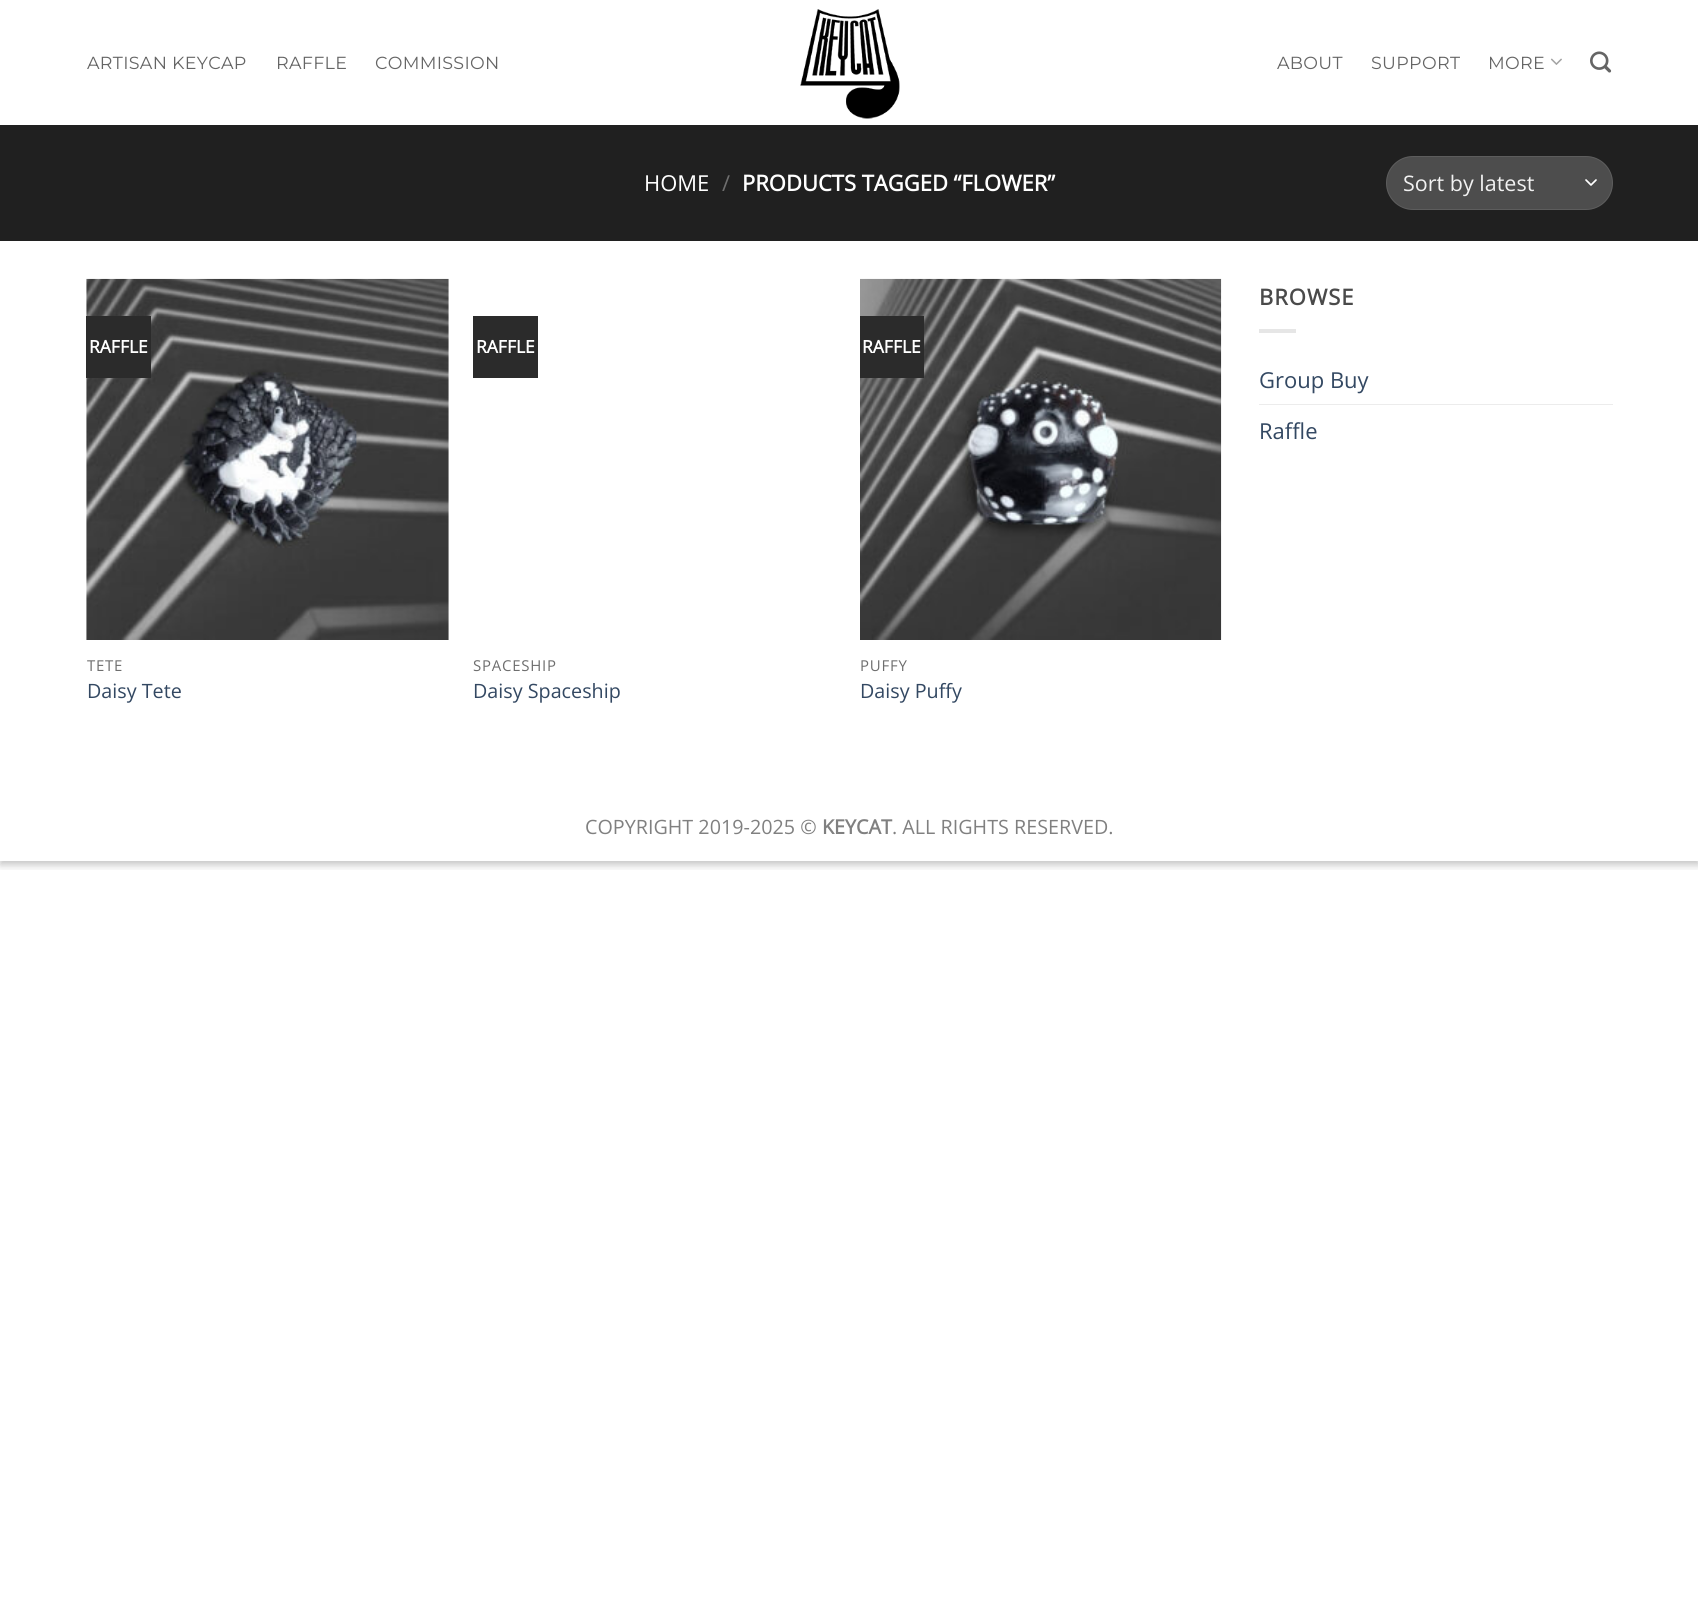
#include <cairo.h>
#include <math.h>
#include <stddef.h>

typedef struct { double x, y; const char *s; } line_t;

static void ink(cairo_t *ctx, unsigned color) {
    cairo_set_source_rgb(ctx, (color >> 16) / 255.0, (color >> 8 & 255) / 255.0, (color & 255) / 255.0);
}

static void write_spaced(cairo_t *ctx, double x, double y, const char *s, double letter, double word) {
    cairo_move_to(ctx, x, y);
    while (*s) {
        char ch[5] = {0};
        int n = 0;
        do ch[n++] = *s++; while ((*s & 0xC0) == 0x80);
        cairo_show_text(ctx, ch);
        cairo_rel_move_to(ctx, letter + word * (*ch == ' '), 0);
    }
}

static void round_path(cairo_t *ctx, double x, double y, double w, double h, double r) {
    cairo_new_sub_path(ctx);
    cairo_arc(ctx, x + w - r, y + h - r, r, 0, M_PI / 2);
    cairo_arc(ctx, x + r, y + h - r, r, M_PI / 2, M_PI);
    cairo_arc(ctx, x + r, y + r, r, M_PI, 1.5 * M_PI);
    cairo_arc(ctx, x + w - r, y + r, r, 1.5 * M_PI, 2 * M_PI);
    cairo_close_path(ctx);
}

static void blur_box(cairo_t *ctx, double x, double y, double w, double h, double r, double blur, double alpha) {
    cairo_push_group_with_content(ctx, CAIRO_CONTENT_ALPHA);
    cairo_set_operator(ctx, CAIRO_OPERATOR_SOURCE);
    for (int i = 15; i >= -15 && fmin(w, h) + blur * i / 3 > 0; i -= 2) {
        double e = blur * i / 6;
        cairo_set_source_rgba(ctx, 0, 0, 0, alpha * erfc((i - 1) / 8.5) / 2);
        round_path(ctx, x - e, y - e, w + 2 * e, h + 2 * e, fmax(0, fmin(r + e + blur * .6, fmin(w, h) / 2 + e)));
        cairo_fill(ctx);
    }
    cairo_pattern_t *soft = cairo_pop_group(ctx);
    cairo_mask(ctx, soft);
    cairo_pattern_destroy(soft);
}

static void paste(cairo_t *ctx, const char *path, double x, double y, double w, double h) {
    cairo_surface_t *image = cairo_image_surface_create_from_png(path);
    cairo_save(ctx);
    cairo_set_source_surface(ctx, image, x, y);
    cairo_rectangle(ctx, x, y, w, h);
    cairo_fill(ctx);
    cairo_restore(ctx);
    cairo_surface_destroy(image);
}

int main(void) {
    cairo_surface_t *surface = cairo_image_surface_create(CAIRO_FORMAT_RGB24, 1698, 1618);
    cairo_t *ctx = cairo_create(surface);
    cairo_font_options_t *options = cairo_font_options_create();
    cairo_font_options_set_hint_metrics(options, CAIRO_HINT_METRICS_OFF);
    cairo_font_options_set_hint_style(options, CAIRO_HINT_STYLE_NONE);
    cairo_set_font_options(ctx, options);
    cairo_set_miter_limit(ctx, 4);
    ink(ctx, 0xFFFFFF);
    cairo_paint(ctx);
    cairo_save(ctx);
    cairo_rectangle(ctx, 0, 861, 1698, 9);
    cairo_clip(ctx);
    ink(ctx, 0x000000);
    blur_box(ctx, 0, 4, 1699, 861, 0, 4, 0.23);
    cairo_restore(ctx);
    cairo_select_font_face(ctx, "Montserrat Thin", CAIRO_FONT_SLANT_NORMAL, CAIRO_FONT_WEIGHT_NORMAL);
    cairo_set_font_size(ctx, 17.5);
    ink(ctx, 0x656565);
    {
        static const line_t items[] = {
            {87, 69, "ARTISAN KEYCAP"},
            {276, 69, "RAFFLE"},
            {375, 69, "COMMISSION"},
        };
        for (size_t i = 0; i < sizeof items / sizeof *items; i++) {
            write_spaced(ctx, items[i].x, items[i].y, items[i].s, 0.3, 0);
        }
    }
    paste(ctx, "media/1.png", 800, 9, 100, 110);
    {
        static const line_t items[] = {
            {1277, 69, "ABOUT"},
            {1371, 69, "SUPPORT"},
            {1488, 69, "MORE"},
        };
        for (size_t i = 0; i < sizeof items / sizeof *items; i++) {
            write_spaced(ctx, items[i].x, items[i].y, items[i].s, 0.3, 0);
        }
    }
    paste(ctx, "media/2.png", 1550, 58, 12, 7);
    paste(ctx, "media/3.png", 1590, 51, 22, 22);
    ink(ctx, 0x202020);
    cairo_rectangle(ctx, 0, 125, 1698, 116);
    cairo_fill(ctx);
    cairo_select_font_face(ctx, "Open Sans", CAIRO_FONT_SLANT_NORMAL, CAIRO_FONT_WEIGHT_NORMAL);
    cairo_set_font_size(ctx, 22);
    ink(ctx, 0xFFFFFF);
    cairo_move_to(ctx, 644, 191);
    cairo_show_text(ctx, "HOME");
    ink(ctx, 0x6E6E6E);
    cairo_move_to(ctx, 722, 191);
    cairo_show_text(ctx, "/");
    cairo_select_font_face(ctx, "Open Sans", CAIRO_FONT_SLANT_NORMAL, CAIRO_FONT_WEIGHT_BOLD);
    ink(ctx, 0xFFFFFF);
    cairo_move_to(ctx, 742, 191);
    cairo_show_text(ctx, "PRODUCTS TAGGED “FLOWER”");
    ink(ctx, 0x4D4D4D);
    round_path(ctx, 1386, 156, 227, 54, 27);
    cairo_fill(ctx);
    cairo_new_path(ctx);
    cairo_move_to(ctx, 1586, 180);
    cairo_line_to(ctx, 1591, 185);
    cairo_line_to(ctx, 1596, 180);
    ink(ctx, 0xFFFFFF);
    cairo_set_line_width(ctx, 1.7);
    cairo_set_line_cap(ctx, CAIRO_LINE_CAP_ROUND);
    cairo_set_line_join(ctx, CAIRO_LINE_JOIN_ROUND);
    cairo_stroke(ctx);
    round_path(ctx, 1386.5, 156.5, 226, 53, 26.5);
    cairo_set_source_rgba(ctx, 1, 1, 1, 0.09);
    cairo_set_line_width(ctx, 1);
    cairo_set_line_cap(ctx, CAIRO_LINE_CAP_BUTT);
    cairo_set_line_join(ctx, CAIRO_LINE_JOIN_MITER);
    cairo_stroke(ctx);
    cairo_select_font_face(ctx, "Open Sans", CAIRO_FONT_SLANT_NORMAL, CAIRO_FONT_WEIGHT_NORMAL);
    cairo_set_font_size(ctx, 21.5);
    ink(ctx, 0xF1F1F1);
    cairo_move_to(ctx, 1403, 191);
    cairo_show_text(ctx, "Sort by latest");
    paste(ctx, "media/4.png", 86, 278, 363, 362);
    ink(ctx, 0x2B2B2B);
    cairo_rectangle(ctx, 86, 316, 65, 62);
    cairo_fill(ctx);
    cairo_select_font_face(ctx, "Open Sans", CAIRO_FONT_SLANT_NORMAL, CAIRO_FONT_WEIGHT_BOLD);
    cairo_set_font_size(ctx, 17.5);
    ink(ctx, 0xFFFFFF);
    cairo_move_to(ctx, 89, 353);
    cairo_show_text(ctx, "RAFFLE");
    cairo_select_font_face(ctx, "Open Sans", CAIRO_FONT_SLANT_NORMAL, CAIRO_FONT_WEIGHT_NORMAL);
    cairo_set_font_size(ctx, 15);
    ink(ctx, 0x6E6E6E);
    write_spaced(ctx, 87, 671, "TETE", 0.75, 0);
    cairo_set_font_size(ctx, 19.75);
    ink(ctx, 0x334862);
    cairo_move_to(ctx, 87, 698);
    cairo_show_text(ctx, "Daisy Tete");
    ink(ctx, 0x2B2B2B);
    cairo_rectangle(ctx, 473, 316, 65, 62);
    cairo_fill(ctx);
    cairo_select_font_face(ctx, "Open Sans", CAIRO_FONT_SLANT_NORMAL, CAIRO_FONT_WEIGHT_BOLD);
    cairo_set_font_size(ctx, 17.5);
    ink(ctx, 0xFFFFFF);
    cairo_move_to(ctx, 476, 353);
    cairo_show_text(ctx, "RAFFLE");
    cairo_select_font_face(ctx, "Open Sans", CAIRO_FONT_SLANT_NORMAL, CAIRO_FONT_WEIGHT_NORMAL);
    cairo_set_font_size(ctx, 15);
    ink(ctx, 0x6E6E6E);
    write_spaced(ctx, 473, 671, "SPACESHIP", 0.75, 0);
    cairo_set_font_size(ctx, 19.75);
    ink(ctx, 0x334862);
    cairo_move_to(ctx, 473, 698);
    cairo_show_text(ctx, "Daisy Spaceship");
    paste(ctx, "media/5.png", 860, 278, 362, 362);
    ink(ctx, 0x2B2B2B);
    cairo_rectangle(ctx, 860, 316, 64, 62);
    cairo_fill(ctx);
    cairo_select_font_face(ctx, "Open Sans", CAIRO_FONT_SLANT_NORMAL, CAIRO_FONT_WEIGHT_BOLD);
    cairo_set_font_size(ctx, 17.5);
    ink(ctx, 0xFFFFFF);
    cairo_move_to(ctx, 862, 353);
    cairo_show_text(ctx, "RAFFLE");
    cairo_select_font_face(ctx, "Open Sans", CAIRO_FONT_SLANT_NORMAL, CAIRO_FONT_WEIGHT_NORMAL);
    cairo_set_font_size(ctx, 15);
    ink(ctx, 0x6E6E6E);
    write_spaced(ctx, 860, 671, "PUFFY", 0.75, 0);
    cairo_set_font_size(ctx, 19.75);
    ink(ctx, 0x334862);
    cairo_move_to(ctx, 860, 698);
    cairo_show_text(ctx, "Daisy Puffy");
    cairo_select_font_face(ctx, "Open Sans", CAIRO_FONT_SLANT_NORMAL, CAIRO_FONT_WEIGHT_BOLD);
    cairo_set_font_size(ctx, 22);
    ink(ctx, 0x4A4A4A);
    write_spaced(ctx, 1259, 305, "BROWSE", 1, 0);
    ink(ctx, 0xE6E6E6);
    cairo_rectangle(ctx, 1259, 329, 37, 4);
    cairo_fill(ctx);
    cairo_select_font_face(ctx, "Open Sans", CAIRO_FONT_SLANT_NORMAL, CAIRO_FONT_WEIGHT_NORMAL);
    ink(ctx, 0x334862);
    cairo_move_to(ctx, 1259, 388);
    cairo_show_text(ctx, "Group Buy");
    ink(ctx, 0xECECEC);
    cairo_rectangle(ctx, 1259, 404, 354, 1);
    cairo_fill(ctx);
    ink(ctx, 0x334862);
    cairo_move_to(ctx, 1259, 439);
    cairo_show_text(ctx, "Raffle");
    cairo_set_font_size(ctx, 19.75);
    ink(ctx, 0x808080);
    cairo_move_to(ctx, 585, 834);
    cairo_show_text(ctx, "COPYRIGHT 2019-2025 ©");
    cairo_select_font_face(ctx, "Open Sans", CAIRO_FONT_SLANT_NORMAL, CAIRO_FONT_WEIGHT_BOLD);
    cairo_move_to(ctx, 822, 834);
    cairo_show_text(ctx, "KEYCAT");
    cairo_select_font_face(ctx, "Open Sans", CAIRO_FONT_SLANT_NORMAL, CAIRO_FONT_WEIGHT_NORMAL);
    cairo_move_to(ctx, 892, 834);
    cairo_show_text(ctx, ". ALL RIGHTS RESERVED.");
    cairo_surface_write_to_png(surface, "image.png");
    cairo_font_options_destroy(options);
    cairo_destroy(ctx);
    cairo_surface_destroy(surface);
    return 0;
}
